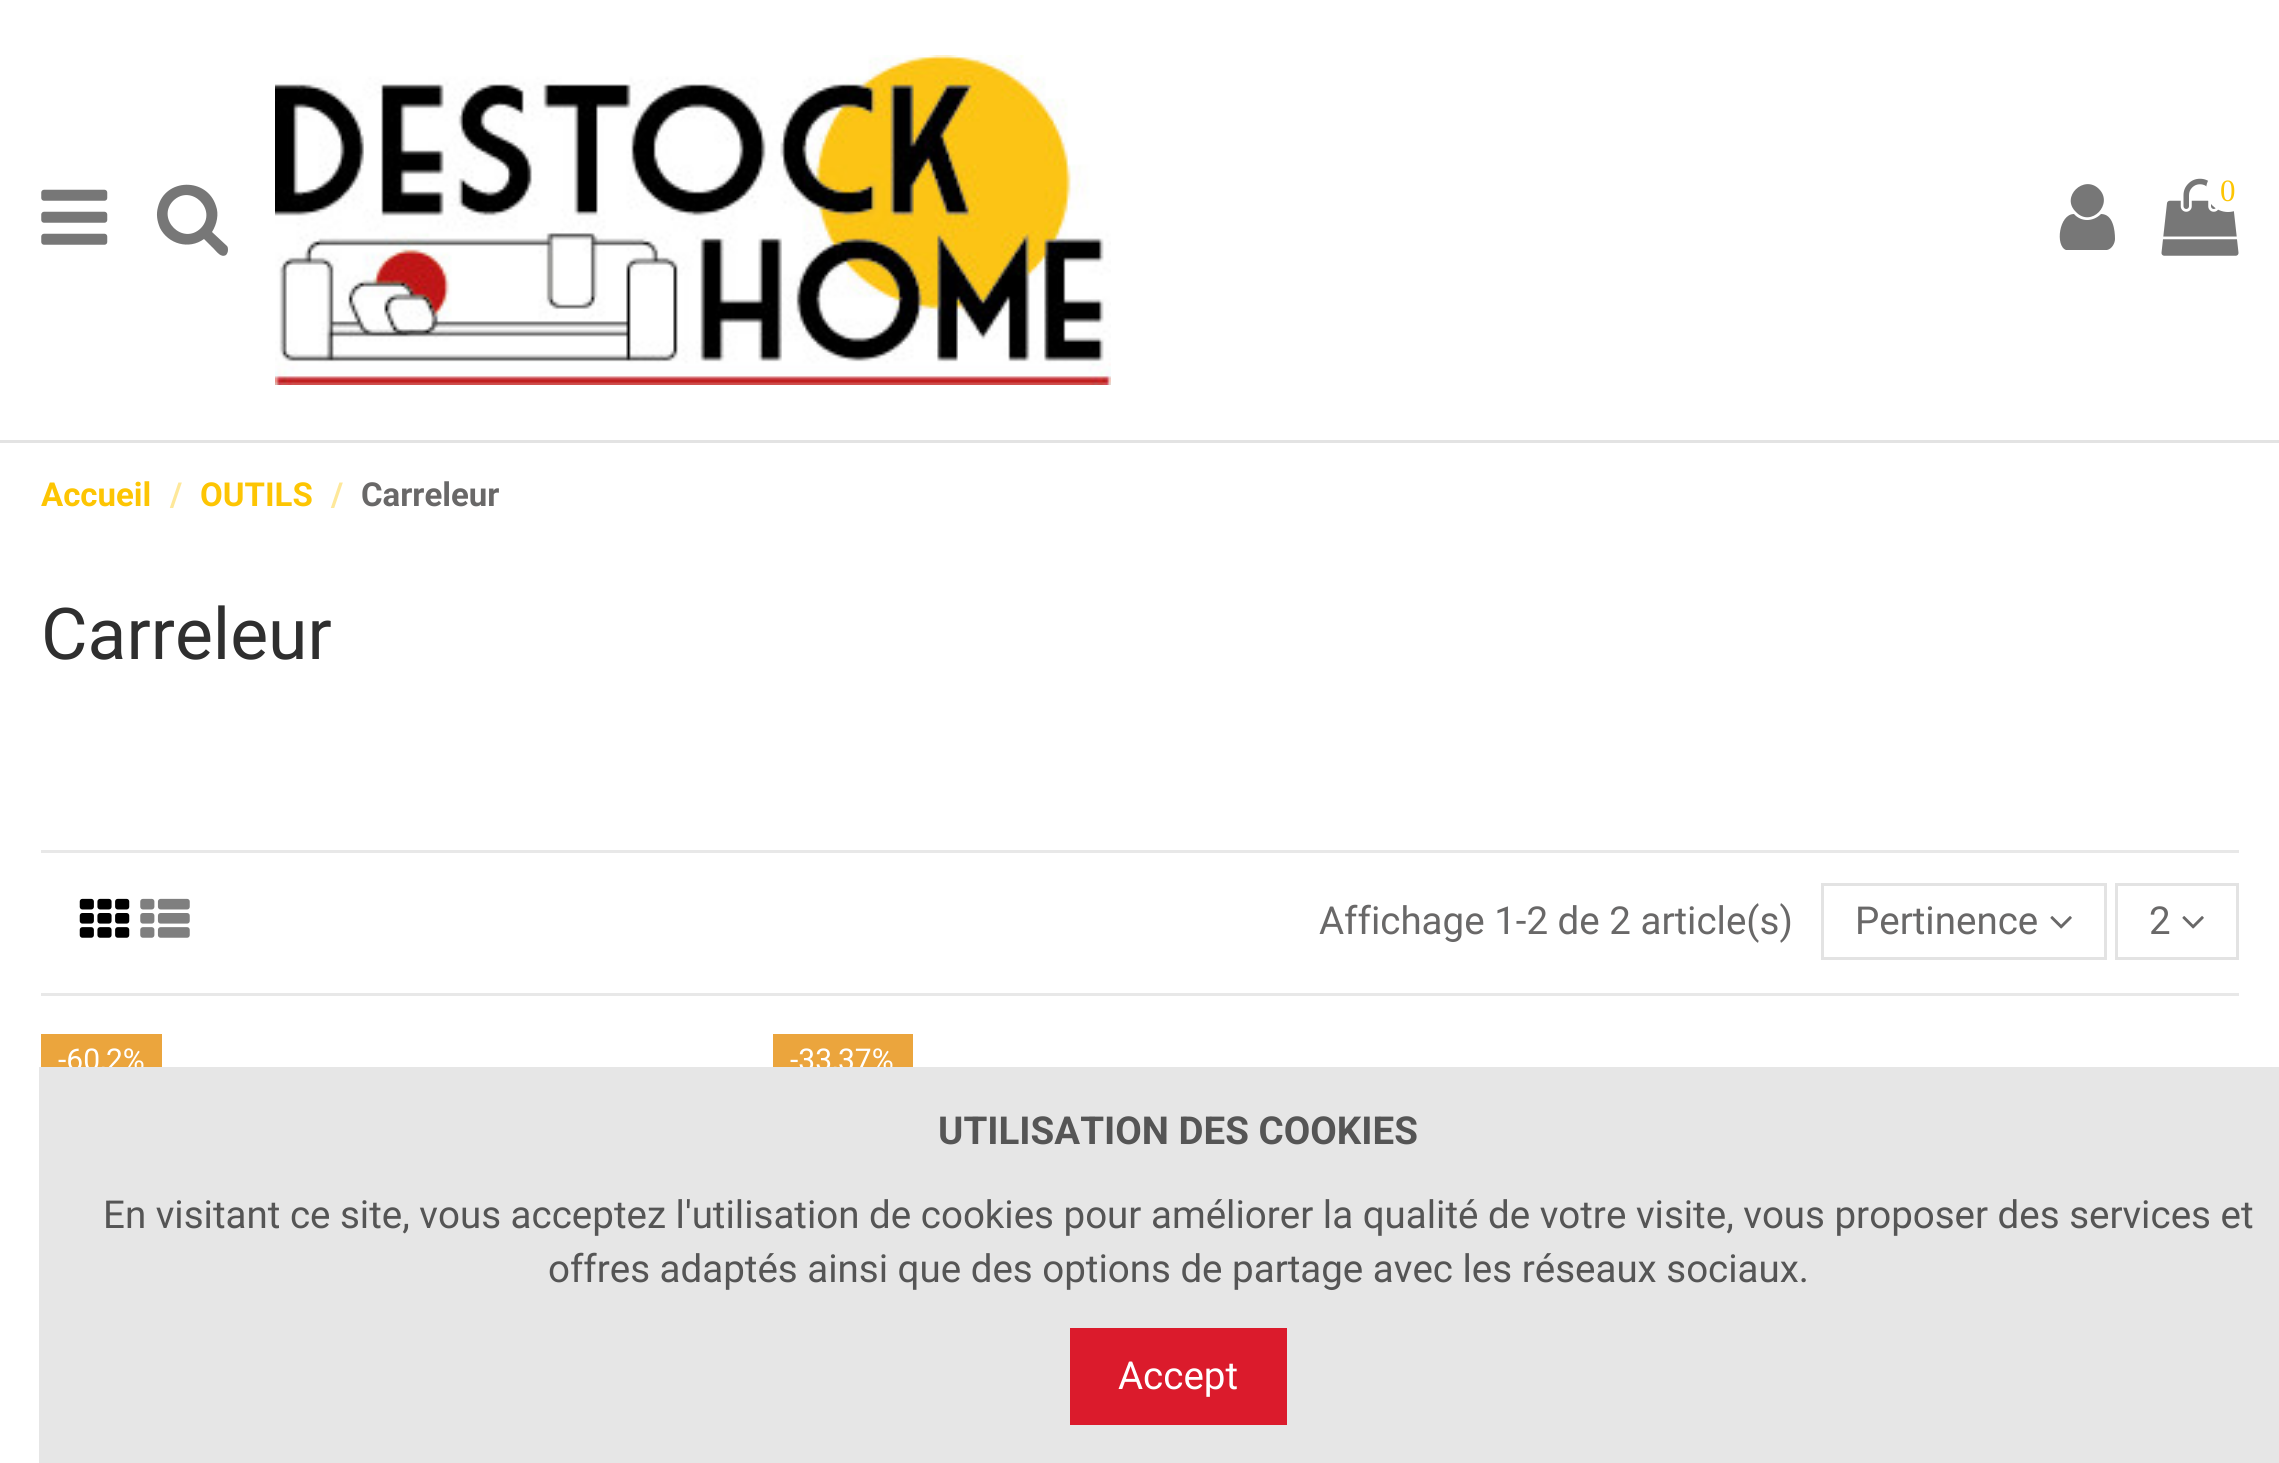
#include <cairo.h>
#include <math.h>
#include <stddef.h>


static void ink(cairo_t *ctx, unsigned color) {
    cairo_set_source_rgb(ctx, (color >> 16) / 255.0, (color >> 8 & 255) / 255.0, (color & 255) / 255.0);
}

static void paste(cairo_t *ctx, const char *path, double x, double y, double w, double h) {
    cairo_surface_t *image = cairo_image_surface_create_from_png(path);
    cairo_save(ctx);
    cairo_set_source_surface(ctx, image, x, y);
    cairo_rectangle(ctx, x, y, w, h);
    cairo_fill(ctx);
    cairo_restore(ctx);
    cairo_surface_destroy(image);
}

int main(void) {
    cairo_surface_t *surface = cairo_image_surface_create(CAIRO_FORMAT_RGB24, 2279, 1463);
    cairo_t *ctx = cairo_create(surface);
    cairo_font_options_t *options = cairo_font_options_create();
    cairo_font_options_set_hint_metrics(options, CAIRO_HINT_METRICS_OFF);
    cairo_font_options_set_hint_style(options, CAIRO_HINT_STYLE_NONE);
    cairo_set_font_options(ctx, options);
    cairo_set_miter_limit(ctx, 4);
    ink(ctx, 0xFFFFFF);
    cairo_paint(ctx);
    ink(ctx, 0xE3E3E3);
    cairo_rectangle(ctx, 0, 440, 2279, 3);
    cairo_fill(ctx);
    paste(ctx, "media/1.png", 41, 189, 67, 56);
    ink(ctx, 0x777777);
    cairo_new_path(ctx);
    cairo_move_to(ctx, 201, 228);
    cairo_curve_to(ctx, 218, 210, 191, 183, 173, 201);
    cairo_curve_to(ctx, 156, 219, 183, 246, 201, 228);
    cairo_close_path(ctx);
    cairo_move_to(ctx, 228, 250);
    cairo_curve_to(ctx, 228, 252, 227, 254, 226, 255);
    cairo_curve_to(ctx, 221, 258, 217, 252, 214, 249);
    cairo_line_to(ctx, 204, 239);
    cairo_curve_to(ctx, 189, 250, 168, 244, 160, 228);
    cairo_curve_to(ctx, 157, 221, 156, 214, 158, 207);
    cairo_curve_to(ctx, 165, 178, 207, 177, 216, 206);
    cairo_curve_to(ctx, 219, 214, 217, 224, 212, 232);
    cairo_line_to(ctx, 227, 246);
    cairo_curve_to(ctx, 228, 247, 228, 249, 228, 250);
    cairo_close_path(ctx);
    cairo_fill(ctx);
    paste(ctx, "media/2.png", 275, 55, 836, 330);
    cairo_new_path(ctx);
    cairo_move_to(ctx, 2115, 239);
    cairo_curve_to(ctx, 2115, 243, 2112, 249, 2107, 250);
    cairo_line_to(ctx, 2075, 250);
    cairo_line_to(ctx, 2066, 250);
    cairo_curve_to(ctx, 2055, 246, 2059, 214, 2074, 214);
    cairo_curve_to(ctx, 2081, 222, 2093, 222, 2101, 214);
    cairo_curve_to(ctx, 2113, 214, 2115, 230, 2115, 239);
    cairo_close_path(ctx);
    cairo_move_to(ctx, 2099, 189);
    cairo_curve_to(ctx, 2114, 204, 2091, 228, 2076, 212);
    cairo_curve_to(ctx, 2060, 197, 2084, 174, 2099, 189);
    cairo_close_path(ctx);
    cairo_fill(ctx);
    paste(ctx, "media/3.png", 2161, 178, 78, 78);
    ink(ctx, 0xFFFFFF);
    cairo_arc(ctx, 2228, 190, 22, 0, 2 * M_PI);
    cairo_fill(ctx);
    cairo_select_font_face(ctx, "Liberation Serif", CAIRO_FONT_SLANT_NORMAL, CAIRO_FONT_WEIGHT_NORMAL);
    cairo_set_font_size(ctx, 31);
    ink(ctx, 0xFDC503);
    cairo_move_to(ctx, 2220, 201);
    cairo_show_text(ctx, "0");
    cairo_select_font_face(ctx, "Roboto", CAIRO_FONT_SLANT_NORMAL, CAIRO_FONT_WEIGHT_BOLD);
    cairo_set_font_size(ctx, 33);
    cairo_move_to(ctx, 41, 506);
    cairo_show_text(ctx, "Accueil");
    ink(ctx, 0xFEE89A);
    cairo_move_to(ctx, 170, 506);
    cairo_show_text(ctx, "/");
    ink(ctx, 0xFDC503);
    cairo_move_to(ctx, 200, 506);
    cairo_show_text(ctx, "OUTILS");
    ink(ctx, 0xFEE89A);
    cairo_move_to(ctx, 331, 506);
    cairo_show_text(ctx, "/");
    ink(ctx, 0x696868);
    cairo_move_to(ctx, 361, 506);
    cairo_show_text(ctx, "Carreleur");
    cairo_select_font_face(ctx, "Roboto", CAIRO_FONT_SLANT_NORMAL, CAIRO_FONT_WEIGHT_NORMAL);
    cairo_set_font_size(ctx, 71.5);
    ink(ctx, 0x2F2F2F);
    cairo_move_to(ctx, 41, 659);
    cairo_show_text(ctx, "Carreleur");
    ink(ctx, 0xE8E8E8);
    cairo_rectangle(ctx, 41, 850, 2198, 3);
    cairo_fill(ctx);
    cairo_rectangle(ctx, 41, 993, 2198, 3);
    cairo_fill(ctx);
    paste(ctx, "media/4.png", 79, 898, 51, 40);
    paste(ctx, "media/5.png", 140, 898, 50, 40);
    cairo_set_font_size(ctx, 38.5);
    ink(ctx, 0x696868);
    cairo_move_to(ctx, 1319, 934);
    cairo_show_text(ctx, "Affichage 1-2 de 2 article(s)");
    cairo_rectangle(ctx, 1822.5, 884.5, 283, 74);
    ink(ctx, 0xE3E3E3);
    cairo_set_line_width(ctx, 3);
    cairo_stroke(ctx);
    ink(ctx, 0x696868);
    cairo_move_to(ctx, 1855, 934);
    cairo_show_text(ctx, "Pertinence");
    paste(ctx, "media/6.png", 2050, 916, 22, 13);
    cairo_rectangle(ctx, 2116.5, 884.5, 121, 74);
    ink(ctx, 0xE3E3E3);
    cairo_stroke(ctx);
    ink(ctx, 0x696868);
    cairo_move_to(ctx, 2149, 934);
    cairo_show_text(ctx, "2");
    paste(ctx, "media/6.png", 2182, 916, 22, 13);
    ink(ctx, 0xEBA53D);
    cairo_rectangle(ctx, 41, 1034, 121, 33);
    cairo_fill(ctx);
    cairo_set_font_size(ctx, 30);
    ink(ctx, 0xFFFFFF);
    cairo_move_to(ctx, 58, 1070);
    cairo_show_text(ctx, "-60,2%");
    ink(ctx, 0xEBA53D);
    cairo_rectangle(ctx, 773, 1034, 140, 33);
    cairo_fill(ctx);
    ink(ctx, 0xFFFFFF);
    cairo_move_to(ctx, 790, 1070);
    cairo_show_text(ctx, "-33,37%");
    ink(ctx, 0xE6E6E6);
    cairo_rectangle(ctx, 39, 1067, 2240, 396);
    cairo_fill(ctx);
    cairo_select_font_face(ctx, "Roboto", CAIRO_FONT_SLANT_NORMAL, CAIRO_FONT_WEIGHT_BOLD);
    cairo_set_font_size(ctx, 38.5);
    ink(ctx, 0x555555);
    cairo_move_to(ctx, 938, 1144);
    cairo_show_text(ctx, "UTILISATION DES COOKIES");
    cairo_select_font_face(ctx, "Roboto", CAIRO_FONT_SLANT_NORMAL, CAIRO_FONT_WEIGHT_NORMAL);
    cairo_move_to(ctx, 103, 1228);
    cairo_show_text(ctx, "En visitant ce site, vous acceptez l'utilisation de cookies pour améliorer la qualité de votre visite, vous proposer des services et");
    cairo_move_to(ctx, 548, 1282);
    cairo_show_text(ctx, "offres adaptés ainsi que des options de partage avec les réseaux sociaux.");
    ink(ctx, 0xDB1B2C);
    cairo_rectangle(ctx, 1070, 1328, 217, 97);
    cairo_fill(ctx);
    ink(ctx, 0xFFFFFF);
    cairo_move_to(ctx, 1118, 1389);
    cairo_show_text(ctx, "Accept");
    cairo_surface_write_to_png(surface, "image.png");
    cairo_font_options_destroy(options);
    cairo_destroy(ctx);
    cairo_surface_destroy(surface);
    return 0;
}
